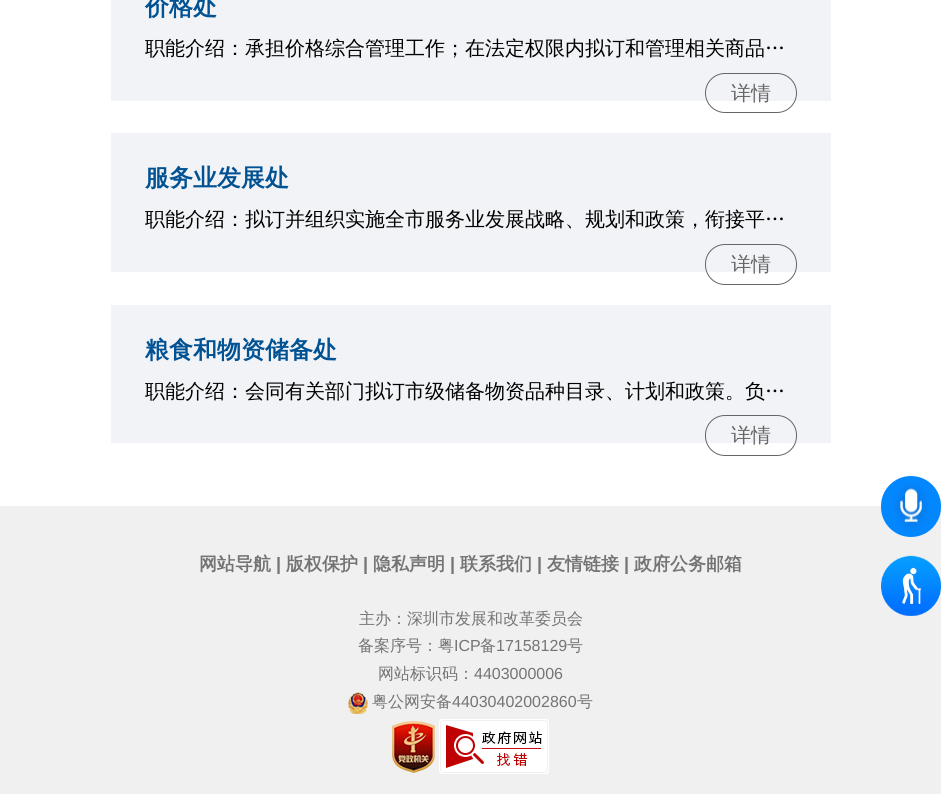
#include <cairo.h>
#include <math.h>
#include <stddef.h>


static void ink(cairo_t *ctx, unsigned color) {
    cairo_set_source_rgb(ctx, (color >> 16) / 255.0, (color >> 8 & 255) / 255.0, (color & 255) / 255.0);
}

static void round_path(cairo_t *ctx, double x, double y, double w, double h, double r) {
    cairo_new_sub_path(ctx);
    cairo_arc(ctx, x + w - r, y + h - r, r, 0, M_PI / 2);
    cairo_arc(ctx, x + r, y + h - r, r, M_PI / 2, M_PI);
    cairo_arc(ctx, x + r, y + r, r, M_PI, 1.5 * M_PI);
    cairo_arc(ctx, x + w - r, y + r, r, 1.5 * M_PI, 2 * M_PI);
    cairo_close_path(ctx);
}

static void paste(cairo_t *ctx, const char *path, double x, double y, double w, double h) {
    cairo_surface_t *image = cairo_image_surface_create_from_png(path);
    cairo_save(ctx);
    cairo_set_source_surface(ctx, image, x, y);
    cairo_rectangle(ctx, x, y, w, h);
    cairo_fill(ctx);
    cairo_restore(ctx);
    cairo_surface_destroy(image);
}

int main(void) {
    cairo_surface_t *surface = cairo_image_surface_create(CAIRO_FORMAT_RGB24, 941, 794);
    cairo_t *ctx = cairo_create(surface);
    cairo_font_options_t *options = cairo_font_options_create();
    cairo_font_options_set_hint_metrics(options, CAIRO_HINT_METRICS_OFF);
    cairo_font_options_set_hint_style(options, CAIRO_HINT_STYLE_NONE);
    cairo_set_font_options(ctx, options);
    cairo_set_miter_limit(ctx, 4);
    ink(ctx, 0xFFFFFF);
    cairo_paint(ctx);
    ink(ctx, 0xF2F3F7);
    cairo_rectangle(ctx, 111, 0, 720, 101);
    cairo_fill(ctx);
    cairo_select_font_face(ctx, "WenQuanYi Zen Hei", CAIRO_FONT_SLANT_NORMAL, CAIRO_FONT_WEIGHT_BOLD);
    cairo_set_font_size(ctx, 24);
    ink(ctx, 0x005293);
    cairo_move_to(ctx, 145, 15);
    cairo_show_text(ctx, "价格处");
    cairo_save(ctx);
    cairo_rectangle(ctx, 145, 34, 652, 29);
    cairo_clip(ctx);
    cairo_select_font_face(ctx, "WenQuanYi Zen Hei Medium", CAIRO_FONT_SLANT_NORMAL, CAIRO_FONT_WEIGHT_NORMAL);
    cairo_set_font_size(ctx, 20);
    ink(ctx, 0x000000);
    cairo_move_to(ctx, 145, 55);
    cairo_show_text(ctx, "职能介绍：承担价格综合管理工作；在法定权限内拟订和管理相关商品…");
    cairo_restore(ctx);
    round_path(ctx, 705.5, 73.5, 91, 39, 19.5);
    ink(ctx, 0x666666);
    cairo_set_line_width(ctx, 1);
    cairo_stroke(ctx);
    cairo_select_font_face(ctx, "WenQuanYi Zen Hei Medium", CAIRO_FONT_SLANT_NORMAL, CAIRO_FONT_WEIGHT_NORMAL);
    cairo_set_font_size(ctx, 20);
    cairo_move_to(ctx, 731, 100);
    cairo_show_text(ctx, "详情");
    ink(ctx, 0xF2F3F7);
    cairo_rectangle(ctx, 111, 133, 720, 139);
    cairo_fill(ctx);
    cairo_select_font_face(ctx, "WenQuanYi Zen Hei", CAIRO_FONT_SLANT_NORMAL, CAIRO_FONT_WEIGHT_BOLD);
    cairo_set_font_size(ctx, 24);
    ink(ctx, 0x005293);
    cairo_move_to(ctx, 145, 186);
    cairo_show_text(ctx, "服务业发展处");
    cairo_save(ctx);
    cairo_rectangle(ctx, 145, 205, 652, 29);
    cairo_clip(ctx);
    cairo_select_font_face(ctx, "WenQuanYi Zen Hei Medium", CAIRO_FONT_SLANT_NORMAL, CAIRO_FONT_WEIGHT_NORMAL);
    cairo_set_font_size(ctx, 20);
    ink(ctx, 0x000000);
    cairo_move_to(ctx, 145, 226);
    cairo_show_text(ctx, "职能介绍：拟订并组织实施全市服务业发展战略、规划和政策，衔接平…");
    cairo_restore(ctx);
    round_path(ctx, 705.5, 244.5, 91, 40, 19.5);
    ink(ctx, 0x666666);
    cairo_stroke(ctx);
    cairo_select_font_face(ctx, "WenQuanYi Zen Hei Medium", CAIRO_FONT_SLANT_NORMAL, CAIRO_FONT_WEIGHT_NORMAL);
    cairo_set_font_size(ctx, 20);
    cairo_move_to(ctx, 731, 271);
    cairo_show_text(ctx, "详情");
    ink(ctx, 0xF2F3F7);
    cairo_rectangle(ctx, 111, 305, 720, 138);
    cairo_fill(ctx);
    cairo_select_font_face(ctx, "WenQuanYi Zen Hei", CAIRO_FONT_SLANT_NORMAL, CAIRO_FONT_WEIGHT_BOLD);
    cairo_set_font_size(ctx, 24);
    ink(ctx, 0x005293);
    cairo_move_to(ctx, 145, 358);
    cairo_show_text(ctx, "粮食和物资储备处");
    cairo_save(ctx);
    cairo_rectangle(ctx, 145, 377, 652, 28);
    cairo_clip(ctx);
    cairo_select_font_face(ctx, "WenQuanYi Zen Hei Medium", CAIRO_FONT_SLANT_NORMAL, CAIRO_FONT_WEIGHT_NORMAL);
    cairo_set_font_size(ctx, 20);
    ink(ctx, 0x000000);
    cairo_move_to(ctx, 145, 398);
    cairo_show_text(ctx, "职能介绍：会同有关部门拟订市级储备物资品种目录、计划和政策。负…");
    cairo_restore(ctx);
    round_path(ctx, 705.5, 415.5, 91, 40, 19.5);
    ink(ctx, 0x666666);
    cairo_stroke(ctx);
    cairo_select_font_face(ctx, "WenQuanYi Zen Hei Medium", CAIRO_FONT_SLANT_NORMAL, CAIRO_FONT_WEIGHT_NORMAL);
    cairo_set_font_size(ctx, 20);
    cairo_move_to(ctx, 731, 442);
    cairo_show_text(ctx, "详情");
    ink(ctx, 0xF0F0F0);
    cairo_rectangle(ctx, 0, 506, 941, 288);
    cairo_fill(ctx);
    cairo_select_font_face(ctx, "WenQuanYi Zen Hei", CAIRO_FONT_SLANT_NORMAL, CAIRO_FONT_WEIGHT_BOLD);
    cairo_set_font_size(ctx, 18);
    ink(ctx, 0x747474);
    cairo_move_to(ctx, 199, 570);
    cairo_show_text(ctx, "网站导航");
    cairo_select_font_face(ctx, "Liberation Sans", CAIRO_FONT_SLANT_NORMAL, CAIRO_FONT_WEIGHT_BOLD);
    cairo_move_to(ctx, 276, 570);
    cairo_show_text(ctx, "|");
    cairo_select_font_face(ctx, "WenQuanYi Zen Hei", CAIRO_FONT_SLANT_NORMAL, CAIRO_FONT_WEIGHT_BOLD);
    cairo_move_to(ctx, 286, 570);
    cairo_show_text(ctx, "版权保护");
    cairo_select_font_face(ctx, "Liberation Sans", CAIRO_FONT_SLANT_NORMAL, CAIRO_FONT_WEIGHT_BOLD);
    cairo_move_to(ctx, 363, 570);
    cairo_show_text(ctx, "|");
    cairo_select_font_face(ctx, "WenQuanYi Zen Hei", CAIRO_FONT_SLANT_NORMAL, CAIRO_FONT_WEIGHT_BOLD);
    cairo_move_to(ctx, 373, 570);
    cairo_show_text(ctx, "隐私声明");
    cairo_select_font_face(ctx, "Liberation Sans", CAIRO_FONT_SLANT_NORMAL, CAIRO_FONT_WEIGHT_BOLD);
    cairo_move_to(ctx, 450, 570);
    cairo_show_text(ctx, "|");
    cairo_select_font_face(ctx, "WenQuanYi Zen Hei", CAIRO_FONT_SLANT_NORMAL, CAIRO_FONT_WEIGHT_BOLD);
    cairo_move_to(ctx, 460, 570);
    cairo_show_text(ctx, "联系我们");
    cairo_select_font_face(ctx, "Liberation Sans", CAIRO_FONT_SLANT_NORMAL, CAIRO_FONT_WEIGHT_BOLD);
    cairo_move_to(ctx, 537, 570);
    cairo_show_text(ctx, "|");
    cairo_select_font_face(ctx, "WenQuanYi Zen Hei", CAIRO_FONT_SLANT_NORMAL, CAIRO_FONT_WEIGHT_BOLD);
    cairo_move_to(ctx, 547, 570);
    cairo_show_text(ctx, "友情链接");
    cairo_select_font_face(ctx, "Liberation Sans", CAIRO_FONT_SLANT_NORMAL, CAIRO_FONT_WEIGHT_BOLD);
    cairo_move_to(ctx, 624, 570);
    cairo_show_text(ctx, "|");
    cairo_select_font_face(ctx, "WenQuanYi Zen Hei", CAIRO_FONT_SLANT_NORMAL, CAIRO_FONT_WEIGHT_BOLD);
    cairo_move_to(ctx, 634, 570);
    cairo_show_text(ctx, "政府公务邮箱");
    cairo_select_font_face(ctx, "WenQuanYi Zen Hei Medium", CAIRO_FONT_SLANT_NORMAL, CAIRO_FONT_WEIGHT_NORMAL);
    cairo_set_font_size(ctx, 16);
    cairo_move_to(ctx, 359, 624);
    cairo_show_text(ctx, "主办：深圳市发展和改革委员会");
    cairo_move_to(ctx, 358, 651);
    cairo_show_text(ctx, "备案序号：粤");
    cairo_select_font_face(ctx, "Liberation Sans", CAIRO_FONT_SLANT_NORMAL, CAIRO_FONT_WEIGHT_NORMAL);
    cairo_move_to(ctx, 454, 651);
    cairo_show_text(ctx, "ICP");
    cairo_select_font_face(ctx, "WenQuanYi Zen Hei Medium", CAIRO_FONT_SLANT_NORMAL, CAIRO_FONT_WEIGHT_NORMAL);
    cairo_move_to(ctx, 480, 651);
    cairo_show_text(ctx, "备");
    cairo_select_font_face(ctx, "Liberation Sans", CAIRO_FONT_SLANT_NORMAL, CAIRO_FONT_WEIGHT_NORMAL);
    cairo_move_to(ctx, 496, 651);
    cairo_show_text(ctx, "17158129");
    cairo_select_font_face(ctx, "WenQuanYi Zen Hei Medium", CAIRO_FONT_SLANT_NORMAL, CAIRO_FONT_WEIGHT_NORMAL);
    cairo_move_to(ctx, 567, 651);
    cairo_show_text(ctx, "号");
    cairo_move_to(ctx, 378, 679);
    cairo_show_text(ctx, "网站标识码：");
    cairo_select_font_face(ctx, "Liberation Sans", CAIRO_FONT_SLANT_NORMAL, CAIRO_FONT_WEIGHT_NORMAL);
    cairo_move_to(ctx, 474, 679);
    cairo_show_text(ctx, "4403000006");
    paste(ctx, "media/1.png", 348, 692, 20, 22);
    cairo_select_font_face(ctx, "WenQuanYi Zen Hei Medium", CAIRO_FONT_SLANT_NORMAL, CAIRO_FONT_WEIGHT_NORMAL);
    cairo_move_to(ctx, 372, 707);
    cairo_show_text(ctx, "粤公网安备");
    cairo_select_font_face(ctx, "Liberation Sans", CAIRO_FONT_SLANT_NORMAL, CAIRO_FONT_WEIGHT_NORMAL);
    cairo_move_to(ctx, 452, 707);
    cairo_show_text(ctx, "44030402002860");
    cairo_select_font_face(ctx, "WenQuanYi Zen Hei Medium", CAIRO_FONT_SLANT_NORMAL, CAIRO_FONT_WEIGHT_NORMAL);
    cairo_move_to(ctx, 577, 707);
    cairo_show_text(ctx, "号");
    paste(ctx, "media/2.png", 392, 721, 43, 52);
    paste(ctx, "media/3.png", 439, 719, 110, 55);
    ink(ctx, 0x0387FF);
    round_path(ctx, 881, 476, 60, 61, 30);
    cairo_fill(ctx);
    paste(ctx, "media/4.png", 893, 483, 36, 48);
    paste(ctx, "media/5.png", 881, 555, 60, 61);
    cairo_surface_write_to_png(surface, "image.png");
    cairo_font_options_destroy(options);
    cairo_destroy(ctx);
    cairo_surface_destroy(surface);
    return 0;
}
